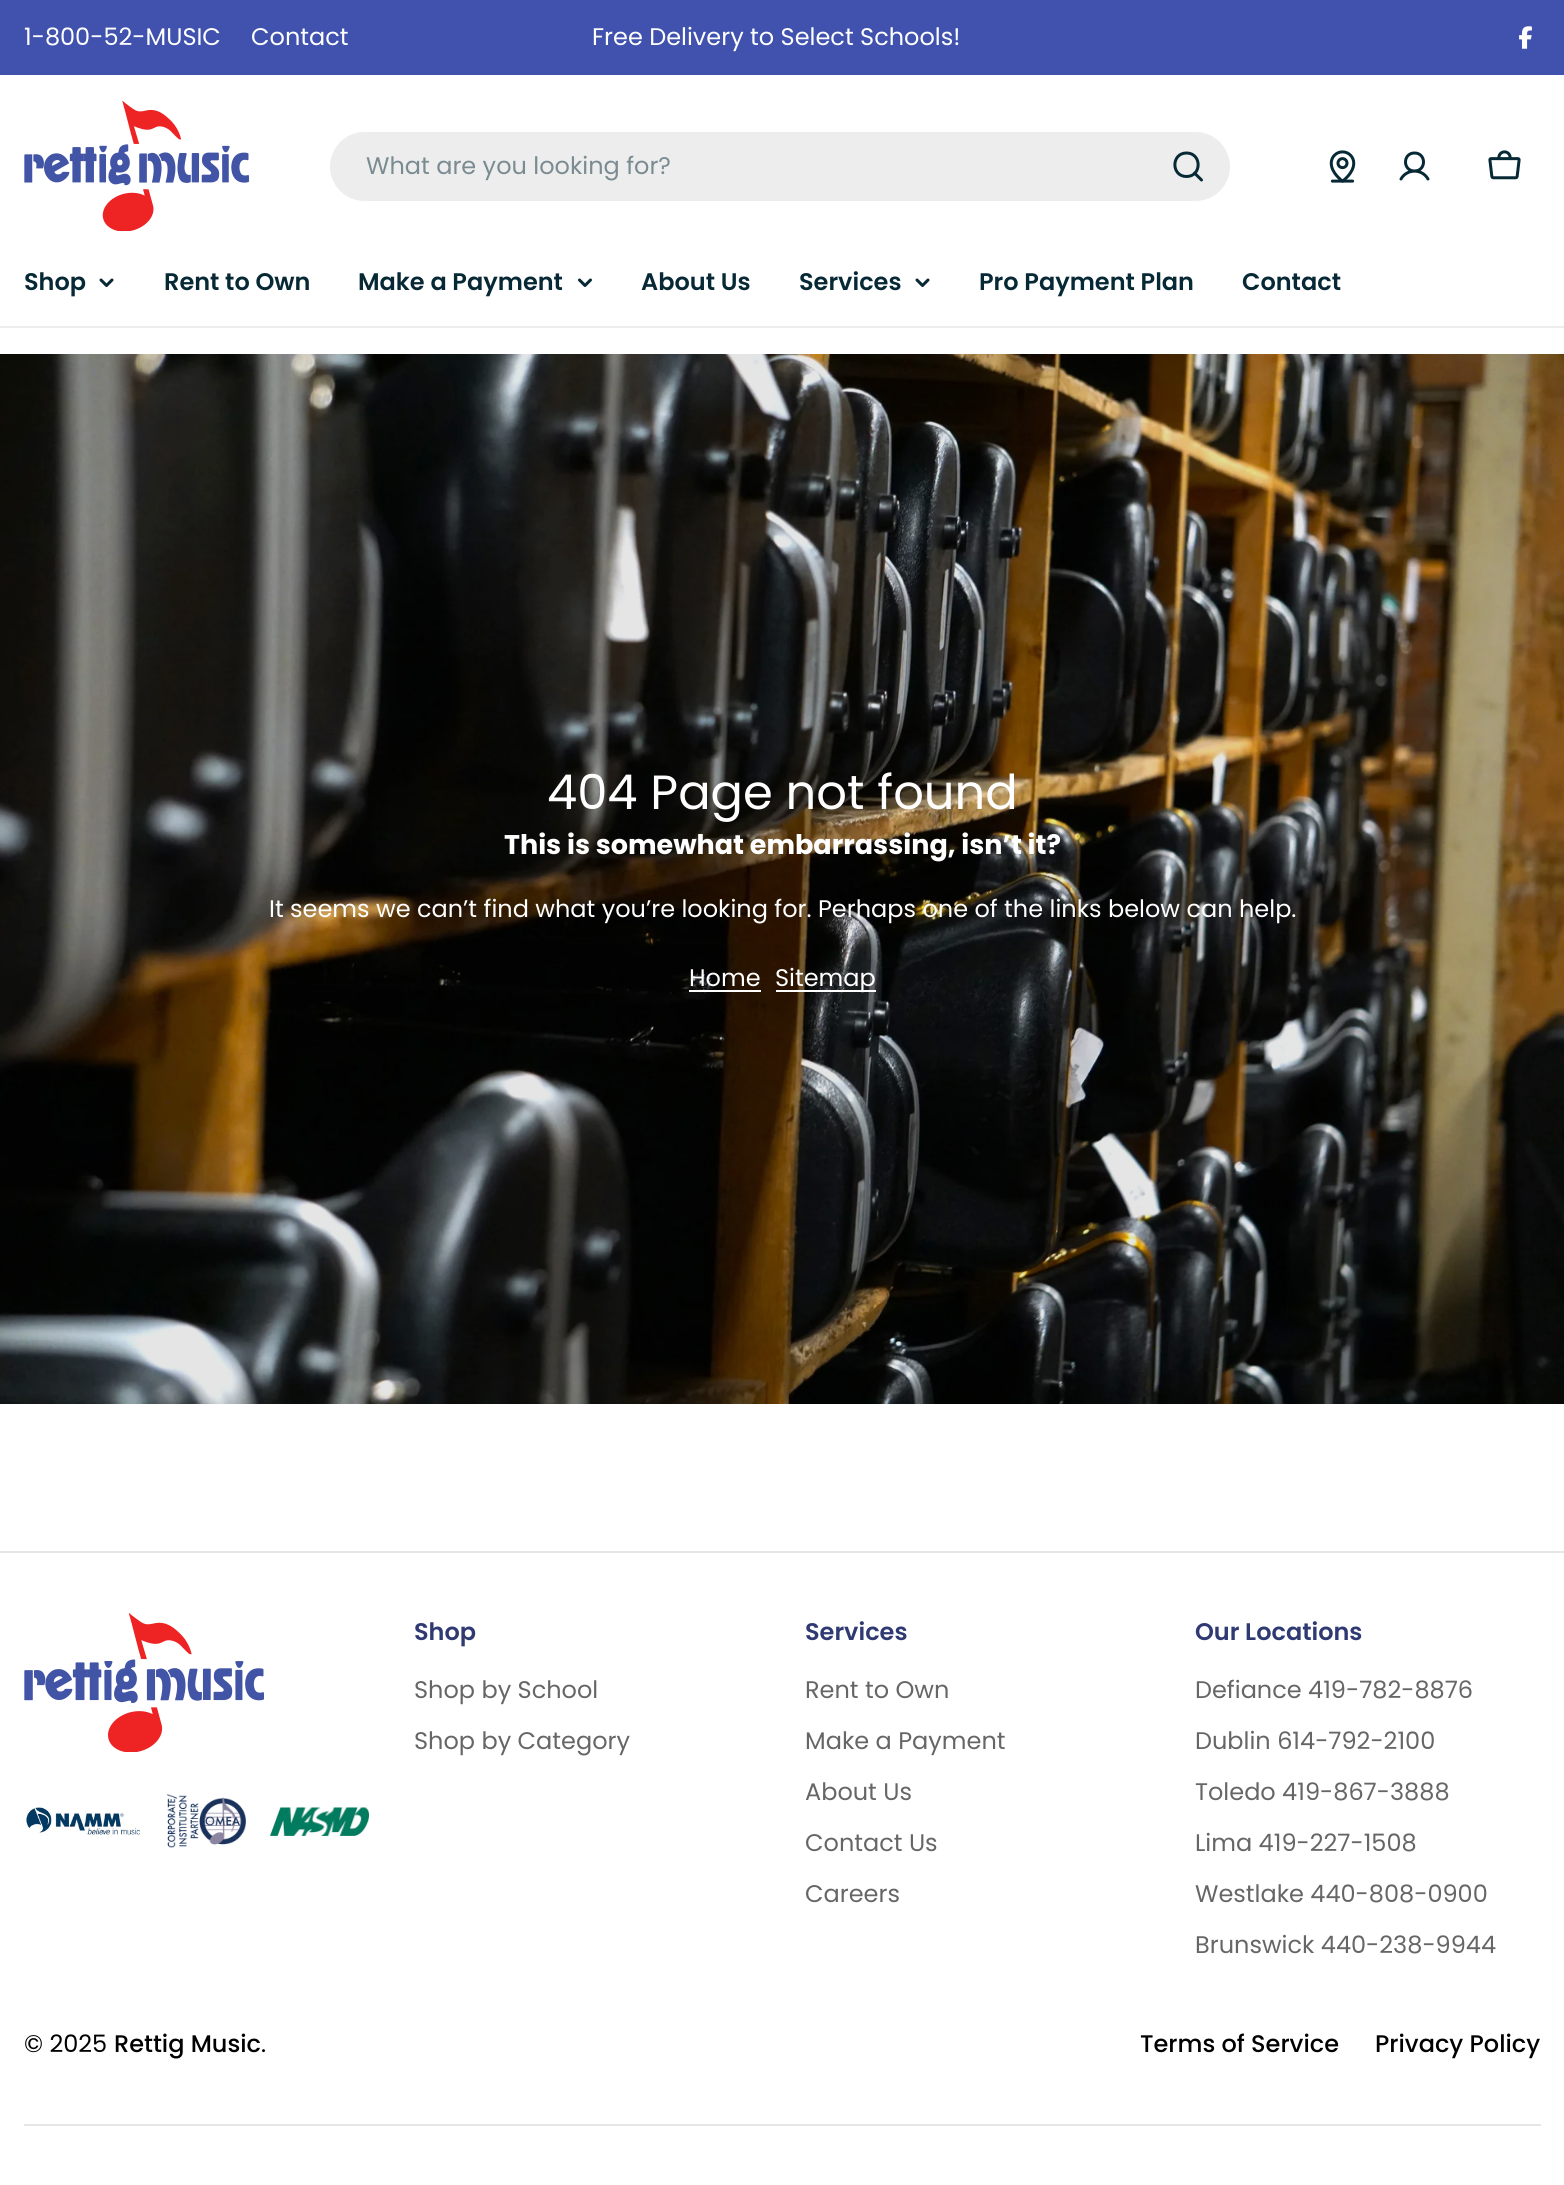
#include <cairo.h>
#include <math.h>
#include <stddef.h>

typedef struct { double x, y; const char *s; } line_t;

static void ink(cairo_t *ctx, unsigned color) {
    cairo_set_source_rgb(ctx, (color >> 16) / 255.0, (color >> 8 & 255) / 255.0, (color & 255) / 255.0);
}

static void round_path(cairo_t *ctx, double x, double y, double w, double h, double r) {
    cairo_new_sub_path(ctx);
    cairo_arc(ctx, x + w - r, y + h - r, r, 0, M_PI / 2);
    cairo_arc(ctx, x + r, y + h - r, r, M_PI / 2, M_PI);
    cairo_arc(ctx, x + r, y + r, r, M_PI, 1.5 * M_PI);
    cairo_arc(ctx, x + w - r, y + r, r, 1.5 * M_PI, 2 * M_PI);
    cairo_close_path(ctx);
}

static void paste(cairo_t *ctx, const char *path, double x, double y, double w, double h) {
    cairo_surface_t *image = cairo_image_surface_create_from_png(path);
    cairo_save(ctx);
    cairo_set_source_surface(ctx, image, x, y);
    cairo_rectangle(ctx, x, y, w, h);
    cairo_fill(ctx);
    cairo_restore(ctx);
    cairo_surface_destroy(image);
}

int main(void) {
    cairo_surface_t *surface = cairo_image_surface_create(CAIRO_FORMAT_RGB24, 1564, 2185);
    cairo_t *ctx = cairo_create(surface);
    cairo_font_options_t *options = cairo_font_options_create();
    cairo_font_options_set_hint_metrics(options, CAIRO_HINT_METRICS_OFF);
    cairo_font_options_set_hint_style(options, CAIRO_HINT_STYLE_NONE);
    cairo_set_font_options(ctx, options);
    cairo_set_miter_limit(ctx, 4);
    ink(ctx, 0xFFFFFF);
    cairo_paint(ctx);
    ink(ctx, 0x4052AD);
    cairo_rectangle(ctx, 0, 0, 1564, 75);
    cairo_fill(ctx);
    cairo_select_font_face(ctx, "Poppins", CAIRO_FONT_SLANT_NORMAL, CAIRO_FONT_WEIGHT_NORMAL);
    cairo_set_font_size(ctx, 24);
    ink(ctx, 0xFFFFFF);
    {
        static const line_t items[] = {
            {24, 45, "1-800-52-MUSIC"},
            {251, 45, "Contact"},
            {592, 45, "Free Delivery to Select Schools!"},
        };
        for (size_t i = 0; i < sizeof items / sizeof *items; i++) {
            cairo_move_to(ctx, items[i].x, items[i].y);
            cairo_show_text(ctx, items[i].s);
        }
    }
    paste(ctx, "media/1.png", 1519, 26, 13, 23);
    paste(ctx, "media/2.png", 24, 101, 225, 130);
    ink(ctx, 0xEDEDED);
    round_path(ctx, 330, 132, 900, 69, 34.5);
    cairo_fill(ctx);
    ink(ctx, 0x7A8B91);
    cairo_move_to(ctx, 366, 174);
    cairo_show_text(ctx, "What are you looking for?");
    cairo_new_path(ctx);
    cairo_move_to(ctx, 1186.5, 176.5);
    cairo_curve_to(ctx, 1202, 176.5, 1202, 153, 1186.5, 153);
    cairo_curve_to(ctx, 1171, 153, 1171, 176.5, 1186.5, 176.5);
    cairo_close_path(ctx);
    cairo_move_to(ctx, 1194.5, 173);
    cairo_line_to(ctx, 1201.5, 180);
    ink(ctx, 0x072835);
    cairo_set_line_width(ctx, 3);
    cairo_set_line_cap(ctx, CAIRO_LINE_CAP_ROUND);
    cairo_set_line_join(ctx, CAIRO_LINE_JOIN_ROUND);
    cairo_stroke(ctx);
    paste(ctx, "media/3.png", 1329, 150, 27, 33);
    cairo_new_path(ctx);
    cairo_move_to(ctx, 1414.5, 171);
    cairo_curve_to(ctx, 1426.5, 171, 1426.5, 153, 1414.5, 153);
    cairo_curve_to(ctx, 1402.5, 153, 1402.5, 171, 1414.5, 171);
    cairo_close_path(ctx);
    cairo_move_to(ctx, 1401, 179);
    cairo_curve_to(ctx, 1407, 168.5, 1422, 168.5, 1428, 179);
    cairo_stroke(ctx);
    paste(ctx, "media/4.png", 1488, 150, 33, 30);
    ink(ctx, 0xEDEDED);
    cairo_rectangle(ctx, 0, 326, 1564, 2);
    cairo_fill(ctx);
    cairo_select_font_face(ctx, "Poppins SemiBold", CAIRO_FONT_SLANT_NORMAL, CAIRO_FONT_WEIGHT_NORMAL);
    ink(ctx, 0x072835);
    cairo_move_to(ctx, 24, 290);
    cairo_show_text(ctx, "Shop");
    cairo_new_path(ctx);
    cairo_move_to(ctx, 112, 280);
    cairo_line_to(ctx, 106.5, 285.5);
    cairo_line_to(ctx, 101, 280);
    cairo_stroke(ctx);
    cairo_move_to(ctx, 164, 290);
    cairo_show_text(ctx, "Rent to Own");
    cairo_move_to(ctx, 358, 290);
    cairo_show_text(ctx, "Make a Payment");
    cairo_new_path(ctx);
    cairo_move_to(ctx, 590.5, 280);
    cairo_line_to(ctx, 585, 285.5);
    cairo_line_to(ctx, 579.5, 280);
    cairo_stroke(ctx);
    cairo_move_to(ctx, 641, 290);
    cairo_show_text(ctx, "About Us");
    cairo_move_to(ctx, 799, 290);
    cairo_show_text(ctx, "Services");
    cairo_new_path(ctx);
    cairo_move_to(ctx, 928, 280);
    cairo_line_to(ctx, 922.5, 285.5);
    cairo_line_to(ctx, 917, 280);
    cairo_stroke(ctx);
    cairo_move_to(ctx, 979, 290);
    cairo_show_text(ctx, "Pro Payment Plan");
    cairo_move_to(ctx, 1242, 290);
    cairo_show_text(ctx, "Contact");
    paste(ctx, "media/5.png", 0, 354, 1564, 1050);
    cairo_select_font_face(ctx, "Poppins", CAIRO_FONT_SLANT_NORMAL, CAIRO_FONT_WEIGHT_NORMAL);
    cairo_set_font_size(ctx, 48);
    ink(ctx, 0xFFFFFF);
    cairo_move_to(ctx, 547, 809);
    cairo_show_text(ctx, "404 Page not found");
    cairo_select_font_face(ctx, "Poppins", CAIRO_FONT_SLANT_NORMAL, CAIRO_FONT_WEIGHT_BOLD);
    cairo_set_font_size(ctx, 27);
    cairo_move_to(ctx, 504, 854);
    cairo_show_text(ctx, "This is somewhat embarrassing, isn’t it?");
    cairo_select_font_face(ctx, "Poppins", CAIRO_FONT_SLANT_NORMAL, CAIRO_FONT_WEIGHT_NORMAL);
    cairo_set_font_size(ctx, 24);
    cairo_move_to(ctx, 269, 917);
    cairo_show_text(ctx, "It seems we can’t find what you’re looking for. Perhaps one of the links below can help.");
    cairo_move_to(ctx, 689, 986);
    cairo_show_text(ctx, "Home");
    cairo_rectangle(ctx, 689, 990, 72, 2);
    cairo_fill(ctx);
    cairo_rectangle(ctx, 776, 990, 100, 2);
    cairo_fill(ctx);
    cairo_move_to(ctx, 775, 986);
    cairo_show_text(ctx, "Sitemap");
    ink(ctx, 0xE6E6E6);
    cairo_rectangle(ctx, 0, 1551, 1564, 2);
    cairo_fill(ctx);
    paste(ctx, "media/6.png", 24, 1613, 240, 139);
    paste(ctx, "media/7.png", 24, 1807, 119, 29);
    paste(ctx, "media/8.png", 167, 1794, 79, 54);
    paste(ctx, "media/9.png", 270, 1807, 99, 29);
    cairo_select_font_face(ctx, "Poppins SemiBold", CAIRO_FONT_SLANT_NORMAL, CAIRO_FONT_WEIGHT_NORMAL);
    ink(ctx, 0x2F3A72);
    cairo_move_to(ctx, 414, 1640);
    cairo_show_text(ctx, "Shop");
    cairo_select_font_face(ctx, "Poppins", CAIRO_FONT_SLANT_NORMAL, CAIRO_FONT_WEIGHT_NORMAL);
    ink(ctx, 0x666666);
    cairo_move_to(ctx, 414, 1698);
    cairo_show_text(ctx, "Shop by School");
    cairo_move_to(ctx, 414, 1749);
    cairo_show_text(ctx, "Shop by Category");
    cairo_select_font_face(ctx, "Poppins SemiBold", CAIRO_FONT_SLANT_NORMAL, CAIRO_FONT_WEIGHT_NORMAL);
    ink(ctx, 0x2F3A72);
    cairo_move_to(ctx, 805, 1640);
    cairo_show_text(ctx, "Services");
    cairo_select_font_face(ctx, "Poppins", CAIRO_FONT_SLANT_NORMAL, CAIRO_FONT_WEIGHT_NORMAL);
    ink(ctx, 0x666666);
    {
        static const line_t items[] = {
            {805, 1698, "Rent to Own"},
            {805, 1749, "Make a Payment"},
            {805, 1800, "About Us"},
            {805, 1851, "Contact Us"},
            {805, 1902, "Careers"},
        };
        for (size_t i = 0; i < sizeof items / sizeof *items; i++) {
            cairo_move_to(ctx, items[i].x, items[i].y);
            cairo_show_text(ctx, items[i].s);
        }
    }
    cairo_select_font_face(ctx, "Poppins SemiBold", CAIRO_FONT_SLANT_NORMAL, CAIRO_FONT_WEIGHT_NORMAL);
    ink(ctx, 0x2F3A72);
    cairo_move_to(ctx, 1195, 1640);
    cairo_show_text(ctx, "Our Locations");
    cairo_select_font_face(ctx, "Poppins", CAIRO_FONT_SLANT_NORMAL, CAIRO_FONT_WEIGHT_NORMAL);
    ink(ctx, 0x666666);
    {
        static const line_t items[] = {
            {1195, 1698, "Defiance 419-782-8876"},
            {1195, 1749, "Dublin 614-792-2100"},
            {1195, 1800, "Toledo 419-867-3888"},
            {1195, 1851, "Lima 419-227-1508"},
            {1195, 1902, "Westlake 440-808-0900"},
            {1195, 1953, "Brunswick 440-238-9944"},
        };
        for (size_t i = 0; i < sizeof items / sizeof *items; i++) {
            cairo_move_to(ctx, items[i].x, items[i].y);
            cairo_show_text(ctx, items[i].s);
        }
    }
    ink(ctx, 0xE6E6E6);
    cairo_rectangle(ctx, 24, 2124, 1517, 2);
    cairo_fill(ctx);
    ink(ctx, 0x000000);
    cairo_move_to(ctx, 24, 2052);
    cairo_show_text(ctx, "© 2025");
    cairo_select_font_face(ctx, "Poppins Medium", CAIRO_FONT_SLANT_NORMAL, CAIRO_FONT_WEIGHT_NORMAL);
    cairo_move_to(ctx, 114, 2052);
    cairo_show_text(ctx, "Rettig Music");
    cairo_select_font_face(ctx, "Poppins", CAIRO_FONT_SLANT_NORMAL, CAIRO_FONT_WEIGHT_NORMAL);
    cairo_move_to(ctx, 261, 2052);
    cairo_show_text(ctx, ".");
    cairo_select_font_face(ctx, "Poppins Medium", CAIRO_FONT_SLANT_NORMAL, CAIRO_FONT_WEIGHT_NORMAL);
    cairo_move_to(ctx, 1140, 2052);
    cairo_show_text(ctx, "Terms of Service");
    cairo_move_to(ctx, 1375, 2052);
    cairo_show_text(ctx, "Privacy Policy");
    cairo_surface_write_to_png(surface, "image.png");
    cairo_font_options_destroy(options);
    cairo_destroy(ctx);
    cairo_surface_destroy(surface);
    return 0;
}
